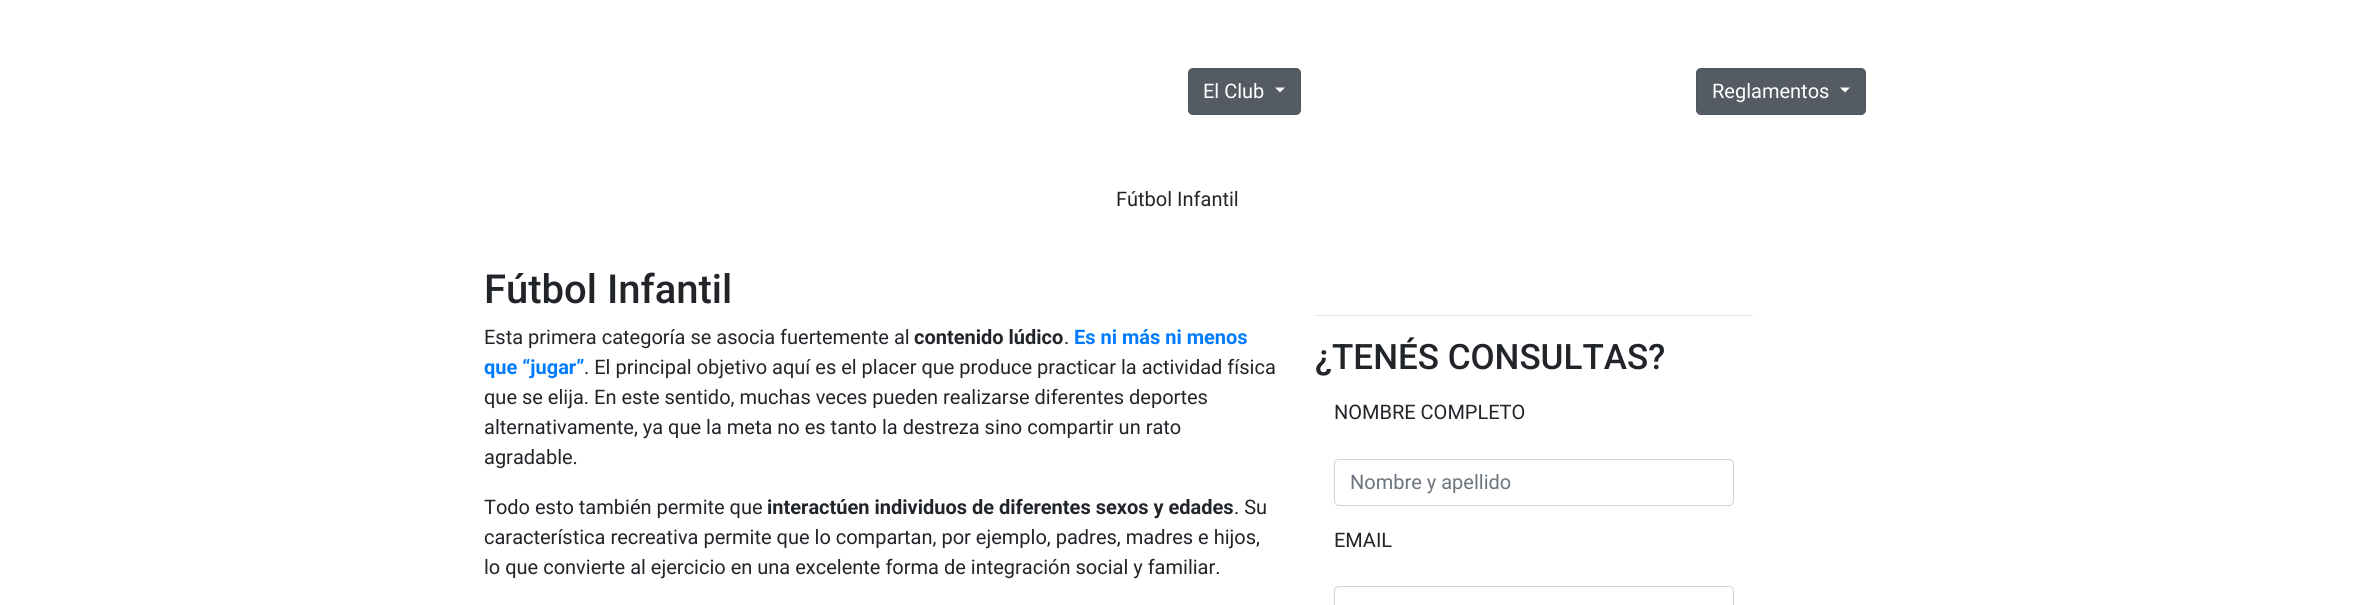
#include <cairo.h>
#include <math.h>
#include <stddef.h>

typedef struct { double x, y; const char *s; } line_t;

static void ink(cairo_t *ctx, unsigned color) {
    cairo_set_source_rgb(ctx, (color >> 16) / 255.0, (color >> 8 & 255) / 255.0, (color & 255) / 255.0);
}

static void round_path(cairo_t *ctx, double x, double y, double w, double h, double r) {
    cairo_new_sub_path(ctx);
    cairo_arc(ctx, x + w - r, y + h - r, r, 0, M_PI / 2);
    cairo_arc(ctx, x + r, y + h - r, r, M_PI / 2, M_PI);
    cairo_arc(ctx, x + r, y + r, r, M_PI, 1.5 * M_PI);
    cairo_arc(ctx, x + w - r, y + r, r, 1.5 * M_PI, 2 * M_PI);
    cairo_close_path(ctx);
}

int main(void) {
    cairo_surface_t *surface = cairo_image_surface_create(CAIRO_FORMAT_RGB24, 2355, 605);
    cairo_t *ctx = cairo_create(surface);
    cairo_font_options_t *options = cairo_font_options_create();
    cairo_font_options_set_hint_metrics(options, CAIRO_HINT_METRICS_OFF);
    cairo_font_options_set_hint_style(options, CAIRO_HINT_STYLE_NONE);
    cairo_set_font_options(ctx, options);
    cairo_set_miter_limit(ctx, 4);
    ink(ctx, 0xFFFFFF);
    cairo_paint(ctx);
    ink(ctx, 0x545B62);
    round_path(ctx, 1188.5, 68.5, 112, 46, 4.5);
    cairo_fill_preserve(ctx);
    ink(ctx, 0x4E555B);
    cairo_set_line_width(ctx, 1);
    cairo_stroke(ctx);
    cairo_select_font_face(ctx, "Roboto", CAIRO_FONT_SLANT_NORMAL, CAIRO_FONT_WEIGHT_NORMAL);
    cairo_set_font_size(ctx, 20);
    ink(ctx, 0xFFFFFF);
    cairo_move_to(ctx, 1203, 98);
    cairo_show_text(ctx, "El Club");
    cairo_new_path(ctx);
    cairo_move_to(ctx, 1275, 87.5);
    cairo_line_to(ctx, 1285, 87.5);
    cairo_line_to(ctx, 1280, 92.5);
    cairo_close_path(ctx);
    cairo_fill(ctx);
    ink(ctx, 0x545B62);
    round_path(ctx, 1696.5, 68.5, 169, 46, 4.5);
    cairo_fill_preserve(ctx);
    ink(ctx, 0x4E555B);
    cairo_stroke(ctx);
    ink(ctx, 0xFFFFFF);
    cairo_move_to(ctx, 1712, 98);
    cairo_show_text(ctx, "Reglamentos");
    cairo_new_path(ctx);
    cairo_move_to(ctx, 1840, 87.5);
    cairo_line_to(ctx, 1850, 87.5);
    cairo_line_to(ctx, 1845, 92.5);
    cairo_close_path(ctx);
    cairo_fill(ctx);
    ink(ctx, 0x212529);
    cairo_move_to(ctx, 1116, 206);
    cairo_show_text(ctx, "Fútbol Infantil");
    cairo_select_font_face(ctx, "Roboto Medium", CAIRO_FONT_SLANT_NORMAL, CAIRO_FONT_WEIGHT_NORMAL);
    cairo_set_font_size(ctx, 40);
    cairo_move_to(ctx, 484, 303);
    cairo_show_text(ctx, "Fútbol Infantil");
    cairo_select_font_face(ctx, "Roboto", CAIRO_FONT_SLANT_NORMAL, CAIRO_FONT_WEIGHT_NORMAL);
    cairo_set_font_size(ctx, 20);
    cairo_move_to(ctx, 484, 344);
    cairo_show_text(ctx, "Esta primera categoría se asocia fuertemente al");
    cairo_select_font_face(ctx, "Roboto", CAIRO_FONT_SLANT_NORMAL, CAIRO_FONT_WEIGHT_BOLD);
    cairo_move_to(ctx, 914, 344);
    cairo_show_text(ctx, "contenido lúdico");
    cairo_select_font_face(ctx, "Roboto", CAIRO_FONT_SLANT_NORMAL, CAIRO_FONT_WEIGHT_NORMAL);
    cairo_move_to(ctx, 1064, 344);
    cairo_show_text(ctx, ".");
    cairo_select_font_face(ctx, "Roboto", CAIRO_FONT_SLANT_NORMAL, CAIRO_FONT_WEIGHT_BOLD);
    ink(ctx, 0x007BFF);
    cairo_move_to(ctx, 1074, 344);
    cairo_show_text(ctx, "Es ni más ni menos");
    cairo_move_to(ctx, 484, 374);
    cairo_show_text(ctx, "que “jugar”");
    cairo_select_font_face(ctx, "Roboto", CAIRO_FONT_SLANT_NORMAL, CAIRO_FONT_WEIGHT_NORMAL);
    ink(ctx, 0x212529);
    {
        static const line_t items[] = {
            {584, 374, ". El principal objetivo aquí es el placer que produce practicar la actividad física"},
            {484, 404, "que se elija. En este sentido, muchas veces pueden realizarse diferentes deportes"},
            {484, 434, "alternativamente, ya que la meta no es tanto la destreza sino compartir un rato"},
            {484, 464, "agradable."},
            {484, 514, "Todo esto también permite que"},
        };
        for (size_t i = 0; i < sizeof items / sizeof *items; i++) {
            cairo_move_to(ctx, items[i].x, items[i].y);
            cairo_show_text(ctx, items[i].s);
        }
    }
    cairo_select_font_face(ctx, "Roboto", CAIRO_FONT_SLANT_NORMAL, CAIRO_FONT_WEIGHT_BOLD);
    cairo_move_to(ctx, 767, 514);
    cairo_show_text(ctx, "interactúen individuos de diferentes sexos y edades");
    cairo_select_font_face(ctx, "Roboto", CAIRO_FONT_SLANT_NORMAL, CAIRO_FONT_WEIGHT_NORMAL);
    {
        static const line_t items[] = {
            {1234, 514, ". Su"},
            {484, 544, "característica recreativa permite que lo compartan, por ejemplo, padres, madres e hijos,"},
            {484, 574, "lo que convierte al ejercicio en una excelente forma de integración social y familiar."},
        };
        for (size_t i = 0; i < sizeof items / sizeof *items; i++) {
            cairo_move_to(ctx, items[i].x, items[i].y);
            cairo_show_text(ctx, items[i].s);
        }
    }
    ink(ctx, 0xE6E6E6);
    cairo_rectangle(ctx, 1315, 315, 438, 1);
    cairo_fill(ctx);
    cairo_select_font_face(ctx, "Roboto Medium", CAIRO_FONT_SLANT_NORMAL, CAIRO_FONT_WEIGHT_NORMAL);
    cairo_set_font_size(ctx, 35);
    ink(ctx, 0x212529);
    cairo_move_to(ctx, 1315, 369);
    cairo_show_text(ctx, "¿TENÉS CONSULTAS?");
    cairo_select_font_face(ctx, "Roboto", CAIRO_FONT_SLANT_NORMAL, CAIRO_FONT_WEIGHT_NORMAL);
    cairo_set_font_size(ctx, 20);
    cairo_move_to(ctx, 1334, 419);
    cairo_show_text(ctx, "NOMBRE COMPLETO");
    round_path(ctx, 1334.5, 459.5, 399, 46, 4.5);
    ink(ctx, 0xCED4DA);
    cairo_stroke(ctx);
    ink(ctx, 0x6C757D);
    cairo_move_to(ctx, 1350, 489);
    cairo_show_text(ctx, "Nombre y apellido");
    ink(ctx, 0x212529);
    cairo_move_to(ctx, 1334, 547);
    cairo_show_text(ctx, "EMAIL");
    round_path(ctx, 1334.5, 586.5, 399, 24, 4.5);
    ink(ctx, 0xCED4DA);
    cairo_stroke(ctx);
    cairo_surface_write_to_png(surface, "image.png");
    cairo_font_options_destroy(options);
    cairo_destroy(ctx);
    cairo_surface_destroy(surface);
    return 0;
}
